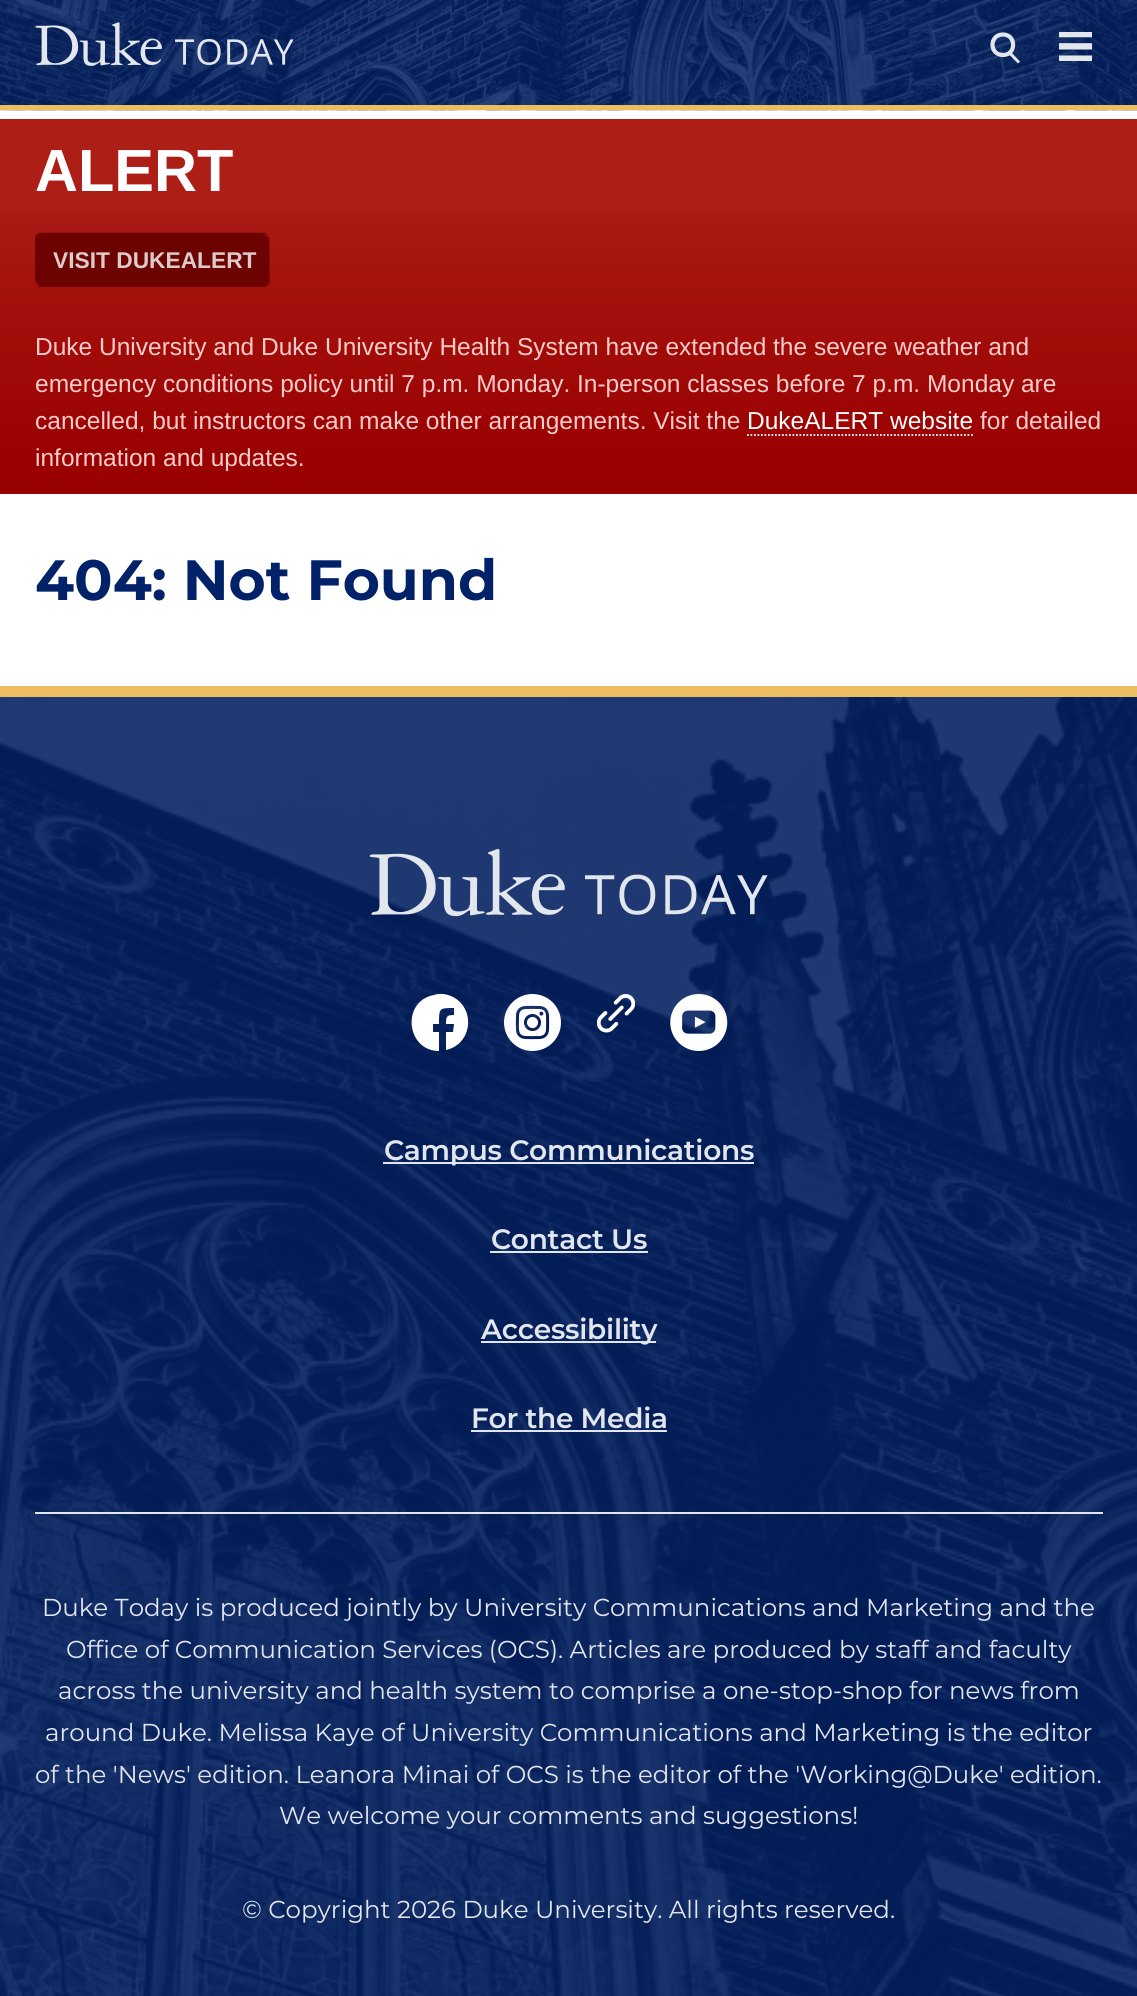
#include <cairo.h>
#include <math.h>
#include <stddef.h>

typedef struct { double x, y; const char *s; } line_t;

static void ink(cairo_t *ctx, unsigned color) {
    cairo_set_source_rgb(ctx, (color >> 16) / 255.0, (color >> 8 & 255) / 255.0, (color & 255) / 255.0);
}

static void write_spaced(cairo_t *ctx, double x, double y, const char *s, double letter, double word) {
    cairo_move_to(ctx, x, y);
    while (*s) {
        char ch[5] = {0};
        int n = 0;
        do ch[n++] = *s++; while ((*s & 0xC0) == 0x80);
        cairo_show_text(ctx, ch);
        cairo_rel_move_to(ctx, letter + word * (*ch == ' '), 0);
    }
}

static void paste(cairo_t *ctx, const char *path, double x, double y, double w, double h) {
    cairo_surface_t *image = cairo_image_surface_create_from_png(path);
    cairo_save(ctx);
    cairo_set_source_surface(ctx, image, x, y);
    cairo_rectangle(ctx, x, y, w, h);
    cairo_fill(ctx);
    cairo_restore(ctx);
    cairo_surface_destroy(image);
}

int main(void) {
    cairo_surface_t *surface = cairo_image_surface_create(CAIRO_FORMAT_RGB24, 1137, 1996);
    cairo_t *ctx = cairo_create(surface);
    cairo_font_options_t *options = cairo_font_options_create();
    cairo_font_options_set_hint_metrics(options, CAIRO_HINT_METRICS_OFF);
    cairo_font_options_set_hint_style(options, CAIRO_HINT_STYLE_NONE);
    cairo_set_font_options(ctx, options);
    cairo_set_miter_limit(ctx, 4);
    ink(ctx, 0xFFFFFF);
    cairo_paint(ctx);
    paste(ctx, "media/1.png", 0, 0, 1137, 111);
    paste(ctx, "media/2.png", 35, 22, 259, 44);
    cairo_new_path(ctx);
    cairo_move_to(ctx, 1003, 34.5);
    cairo_curve_to(ctx, 989, 34.5, 989, 55, 1003, 55);
    cairo_curve_to(ctx, 1016.5, 55, 1016.5, 34.5, 1003, 34.5);
    cairo_close_path(ctx);
    ink(ctx, 0xE2E6ED);
    cairo_set_line_width(ctx, 4.2);
    cairo_stroke(ctx);
    cairo_new_path(ctx);
    cairo_move_to(ctx, 1009.5, 50.5);
    cairo_line_to(ctx, 1007.5, 53);
    cairo_line_to(ctx, 1018, 63.5);
    cairo_line_to(ctx, 1020, 61.5);
    cairo_close_path(ctx);
    cairo_fill(ctx);
    paste(ctx, "media/3.png", 1059, 32, 33, 29);
    ink(ctx, 0xEEBD60);
    cairo_rectangle(ctx, 0, 105, 1137, 5);
    cairo_fill(ctx);
    ink(ctx, 0xAD1E17);
    cairo_rectangle(ctx, 0, 119, 1137, 375);
    cairo_fill(ctx);
    paste(ctx, "media/4.png", 0, 213, 1137, 281);
    cairo_select_font_face(ctx, "Liberation Sans", CAIRO_FONT_SLANT_NORMAL, CAIRO_FONT_WEIGHT_BOLD);
    cairo_set_font_size(ctx, 59.5);
    ink(ctx, 0xFFFFFF);
    cairo_move_to(ctx, 35, 191);
    cairo_show_text(ctx, "ALERT");
    paste(ctx, "media/5.png", 35, 232, 231, 54);
    paste(ctx, "media/6.png", 38, 234, 232, 53);
    cairo_set_font_size(ctx, 22.75);
    ink(ctx, 0xDCCBCB);
    cairo_move_to(ctx, 53, 268);
    cairo_show_text(ctx, "VISIT DUKEALERT");
    cairo_select_font_face(ctx, "Liberation Sans", CAIRO_FONT_SLANT_NORMAL, CAIRO_FONT_WEIGHT_NORMAL);
    cairo_set_font_size(ctx, 24.5);
    ink(ctx, 0xFFCCCC);
    {
        static const line_t items[] = {
            {35, 355, "Duke University and Duke University Health System have extended the severe weather and"},
            {35, 392, "emergency conditions policy until 7 p.m. Monday. In-person classes before 7 p.m. Monday are"},
            {35, 429, "cancelled, but instructors can make other arrangements. Visit the"},
        };
        for (size_t i = 0; i < sizeof items / sizeof *items; i++) {
            cairo_move_to(ctx, items[i].x, items[i].y);
            cairo_show_text(ctx, items[i].s);
        }
    }
    ink(ctx, 0xFFFFFF);
    cairo_move_to(ctx, 747, 429);
    cairo_show_text(ctx, "DukeALERT website");
    cairo_new_path(ctx);
    cairo_move_to(ctx, 747, 435);
    cairo_line_to(ctx, 973, 435);
    cairo_set_line_width(ctx, 1.8);
    cairo_set_dash(ctx, (double[]){1.75, 1.75}, 2, 0);
    cairo_stroke(ctx);
    ink(ctx, 0xFFCCCC);
    cairo_move_to(ctx, 980, 429);
    cairo_show_text(ctx, "for detailed");
    cairo_move_to(ctx, 35, 466);
    cairo_show_text(ctx, "information and updates.");
    cairo_select_font_face(ctx, "Montserrat", CAIRO_FONT_SLANT_NORMAL, CAIRO_FONT_WEIGHT_BOLD);
    cairo_set_font_size(ctx, 56.75);
    ink(ctx, 0x012169);
    cairo_move_to(ctx, 35, 600);
    cairo_show_text(ctx, "404: Not Found");
    paste(ctx, "media/7.png", 0, 697, 1137, 1299);
    ink(ctx, 0xEEBD60);
    cairo_rectangle(ctx, 0, 686, 1137, 11);
    cairo_fill(ctx);
    paste(ctx, "media/8.png", 369, 849, 399, 68);
    ink(ctx, 0xFFFFFF);
    cairo_set_fill_rule(ctx, CAIRO_FILL_RULE_EVEN_ODD);
    cairo_new_path(ctx);
    cairo_move_to(ctx, 446, 1050);
    cairo_curve_to(ctx, 473, 1044, 476, 1007, 451, 996);
    cairo_curve_to(ctx, 446, 994, 440, 993, 434, 995);
    cairo_curve_to(ctx, 401, 1001, 406, 1051, 439, 1051);
    cairo_line_to(ctx, 439, 1032);
    cairo_line_to(ctx, 433, 1032);
    cairo_line_to(ctx, 433, 1024);
    cairo_line_to(ctx, 439, 1024);
    cairo_curve_to(ctx, 439, 1008, 439, 1008, 454, 1008);
    cairo_line_to(ctx, 454, 1015);
    cairo_curve_to(ctx, 447, 1015, 446, 1016, 446, 1024);
    cairo_line_to(ctx, 454, 1024);
    cairo_line_to(ctx, 453, 1032);
    cairo_line_to(ctx, 446, 1032);
    cairo_close_path(ctx);
    cairo_move_to(ctx, 440, 1051);
    cairo_line_to(ctx, 440, 1051);
    cairo_close_path(ctx);
    cairo_fill(ctx);
    paste(ctx, "media/9.png", 504, 994, 57, 57);
    paste(ctx, "media/10.png", 597, 994, 38, 39);
    paste(ctx, "media/11.png", 670, 994, 58, 57);
    ink(ctx, 0xE2E6ED);
    cairo_rectangle(ctx, 35, 1512, 1068, 2);
    cairo_fill(ctx);
    cairo_rectangle(ctx, 383, 1162, 371, 2);
    cairo_fill(ctx);
    cairo_select_font_face(ctx, "Montserrat SemiBold", CAIRO_FONT_SLANT_NORMAL, CAIRO_FONT_WEIGHT_NORMAL);
    cairo_set_font_size(ctx, 28);
    write_spaced(ctx, 384, 1160, "Campus Communications", -0.25, 0);
    write_spaced(ctx, 491, 1249, "Contact Us", -0.25, 0);
    cairo_rectangle(ctx, 490, 1251, 158, 2);
    cairo_fill(ctx);
    cairo_rectangle(ctx, 481, 1341, 175, 2);
    cairo_fill(ctx);
    write_spaced(ctx, 481, 1339, "Accessibility", -0.25, 0);
    write_spaced(ctx, 471, 1428, "For the Media", -0.25, 0);
    cairo_rectangle(ctx, 471, 1430, 196, 2);
    cairo_fill(ctx);
    cairo_select_font_face(ctx, "Montserrat", CAIRO_FONT_SLANT_NORMAL, CAIRO_FONT_WEIGHT_NORMAL);
    cairo_set_font_size(ctx, 24.5);
    {
        static const line_t items[] = {
            {42, 1616, "Duke Today is produced jointly by University Communications and Marketing and the"},
            {66, 1658, "Office of Communication Services (OCS). Articles are produced by staff and faculty"},
            {58, 1699, "across the university and health system to comprise a one-stop-shop for news from"},
            {45, 1741, "around Duke. Melissa Kaye of University Communications and Marketing is the editor"},
            {35, 1783, "of the 'News' edition. Leanora Minai of OCS is the editor of the 'Working@Duke' edition."},
            {279, 1824, "We welcome your comments and suggestions!"},
            {242, 1918, "© Copyright 2026 Duke University. All rights reserved."},
        };
        for (size_t i = 0; i < sizeof items / sizeof *items; i++) {
            cairo_move_to(ctx, items[i].x, items[i].y);
            cairo_show_text(ctx, items[i].s);
        }
    }
    cairo_surface_write_to_png(surface, "image.png");
    cairo_font_options_destroy(options);
    cairo_destroy(ctx);
    cairo_surface_destroy(surface);
    return 0;
}
